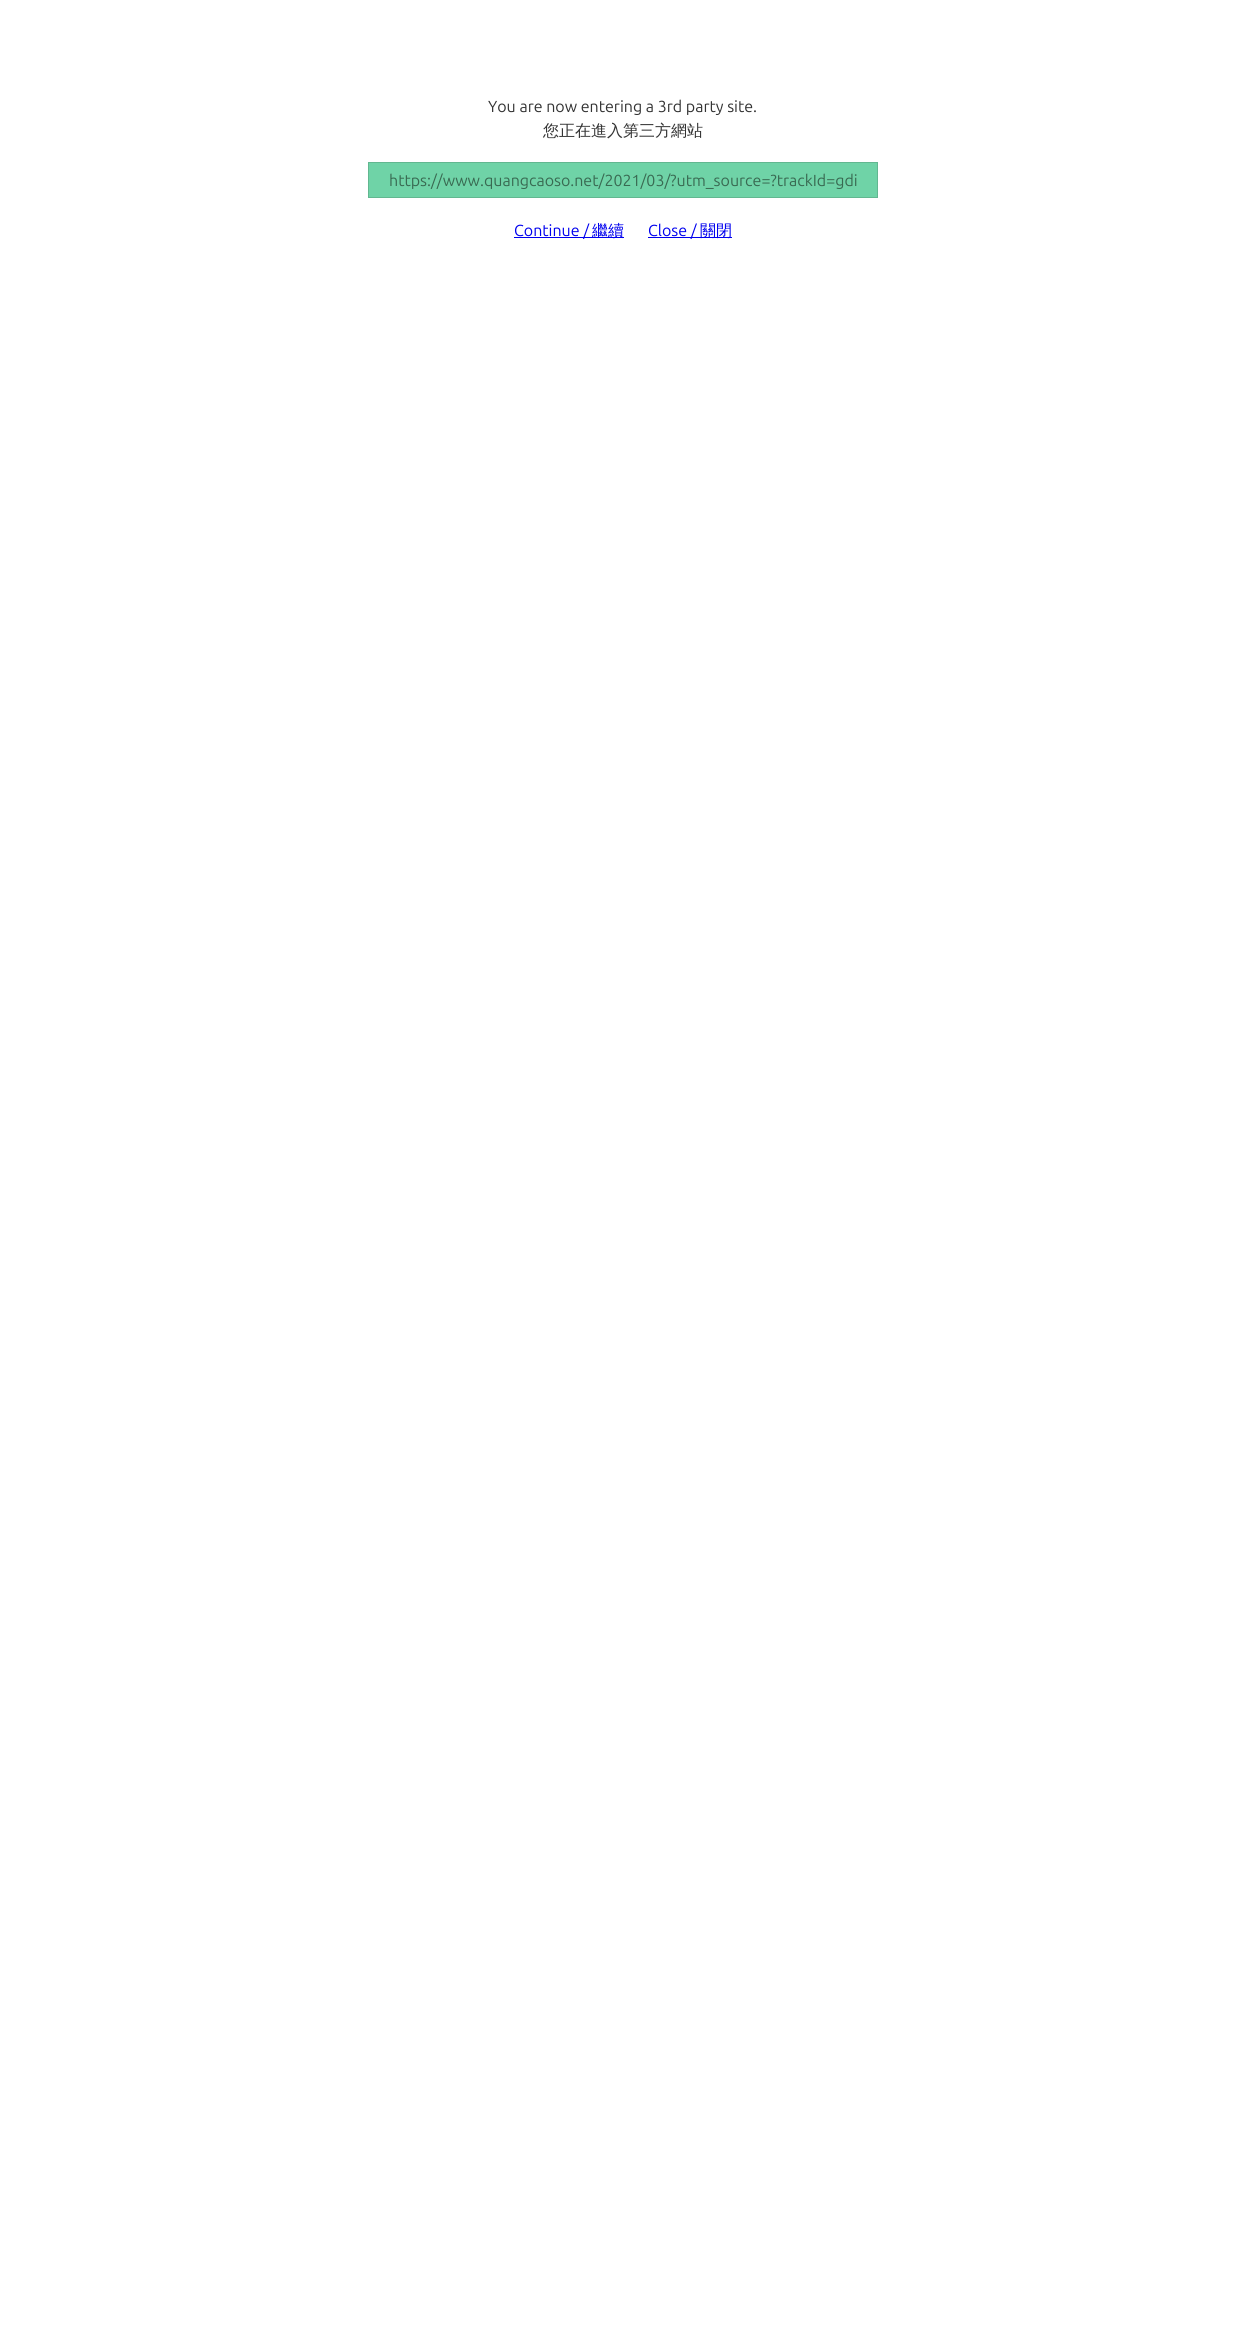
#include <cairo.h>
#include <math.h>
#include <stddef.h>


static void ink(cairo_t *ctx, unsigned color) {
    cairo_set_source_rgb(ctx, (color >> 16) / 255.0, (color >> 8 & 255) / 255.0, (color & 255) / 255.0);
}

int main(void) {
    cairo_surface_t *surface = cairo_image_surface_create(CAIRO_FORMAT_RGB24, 1246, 2347);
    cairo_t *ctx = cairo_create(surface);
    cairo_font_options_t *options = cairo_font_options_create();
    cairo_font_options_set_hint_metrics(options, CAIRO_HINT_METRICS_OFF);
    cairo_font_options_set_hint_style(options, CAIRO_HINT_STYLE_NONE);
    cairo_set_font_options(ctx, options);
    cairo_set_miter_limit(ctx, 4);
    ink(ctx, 0xFFFFFF);
    cairo_paint(ctx);
    cairo_select_font_face(ctx, "Ubuntu", CAIRO_FONT_SLANT_NORMAL, CAIRO_FONT_WEIGHT_NORMAL);
    cairo_set_font_size(ctx, 16);
    ink(ctx, 0x333333);
    cairo_move_to(ctx, 488, 112);
    cairo_show_text(ctx, "You are now entering a 3rd party site.");
    cairo_select_font_face(ctx, "WenQuanYi Zen Hei Medium", CAIRO_FONT_SLANT_NORMAL, CAIRO_FONT_WEIGHT_NORMAL);
    cairo_move_to(ctx, 543, 136);
    cairo_show_text(ctx, "您正在進入第三方網站");
    ink(ctx, 0x6FD3A7);
    cairo_rectangle(ctx, 368.5, 162.5, 509, 35);
    cairo_fill_preserve(ctx);
    ink(ctx, 0x62B790);
    cairo_set_line_width(ctx, 1);
    cairo_stroke(ctx);
    cairo_select_font_face(ctx, "Ubuntu", CAIRO_FONT_SLANT_NORMAL, CAIRO_FONT_WEIGHT_NORMAL);
    ink(ctx, 0x396A52);
    cairo_move_to(ctx, 389, 186);
    cairo_show_text(ctx, "https://www.quangcaoso.net/2021/03/?utm_source=?trackId=gdi");
    ink(ctx, 0x0000EE);
    cairo_rectangle(ctx, 514, 237, 110, 1);
    cairo_fill(ctx);
    cairo_move_to(ctx, 514, 236);
    cairo_show_text(ctx, "Continue /");
    cairo_select_font_face(ctx, "WenQuanYi Zen Hei Medium", CAIRO_FONT_SLANT_NORMAL, CAIRO_FONT_WEIGHT_NORMAL);
    cairo_move_to(ctx, 592, 236);
    cairo_show_text(ctx, "繼續");
    cairo_rectangle(ctx, 648, 237, 84, 1);
    cairo_fill(ctx);
    cairo_select_font_face(ctx, "Ubuntu", CAIRO_FONT_SLANT_NORMAL, CAIRO_FONT_WEIGHT_NORMAL);
    cairo_move_to(ctx, 648, 236);
    cairo_show_text(ctx, "Close /");
    cairo_select_font_face(ctx, "WenQuanYi Zen Hei Medium", CAIRO_FONT_SLANT_NORMAL, CAIRO_FONT_WEIGHT_NORMAL);
    cairo_move_to(ctx, 700, 236);
    cairo_show_text(ctx, "關閉");
    cairo_surface_write_to_png(surface, "image.png");
    cairo_font_options_destroy(options);
    cairo_destroy(ctx);
    cairo_surface_destroy(surface);
    return 0;
}
